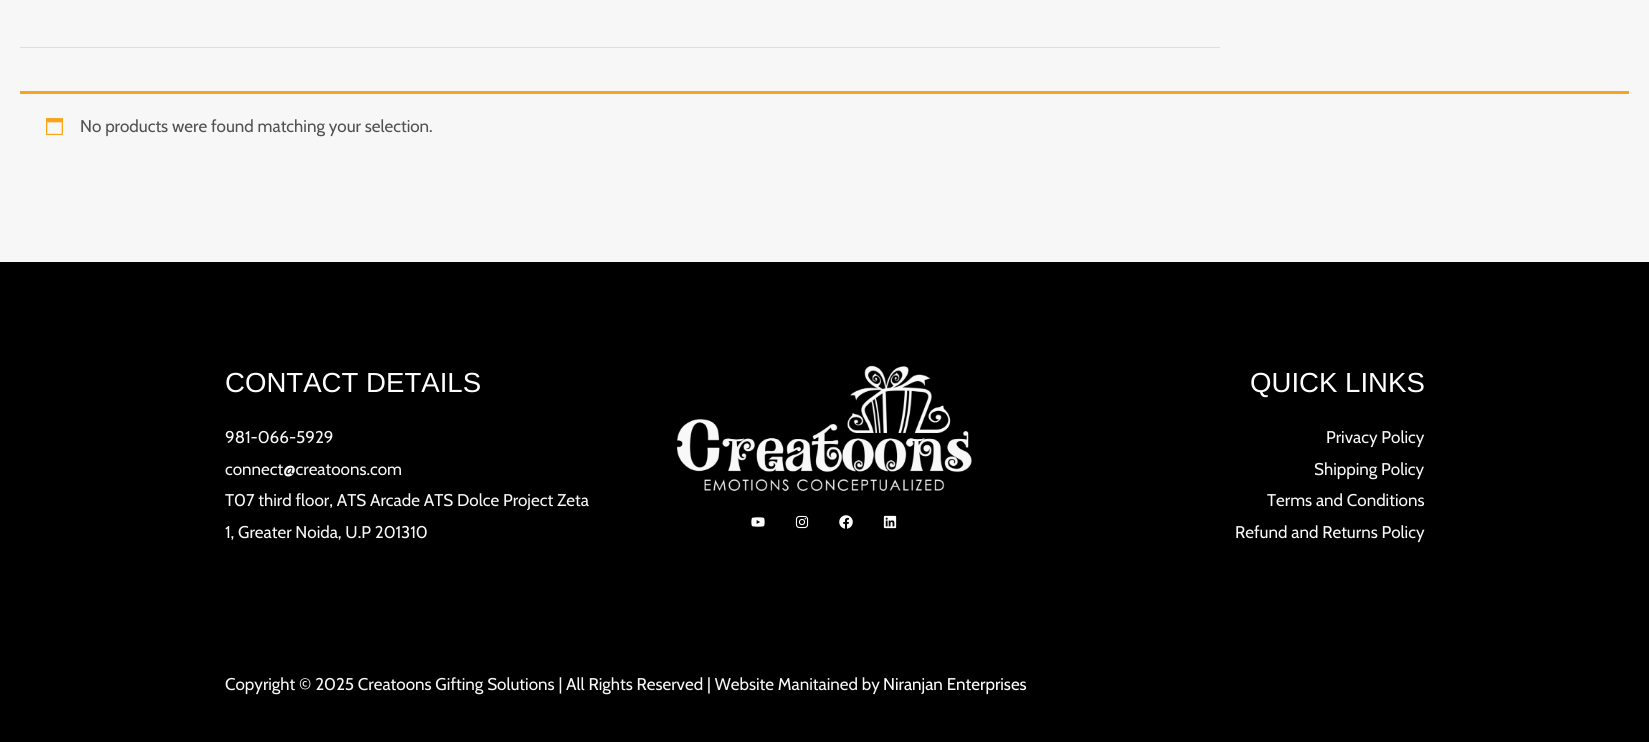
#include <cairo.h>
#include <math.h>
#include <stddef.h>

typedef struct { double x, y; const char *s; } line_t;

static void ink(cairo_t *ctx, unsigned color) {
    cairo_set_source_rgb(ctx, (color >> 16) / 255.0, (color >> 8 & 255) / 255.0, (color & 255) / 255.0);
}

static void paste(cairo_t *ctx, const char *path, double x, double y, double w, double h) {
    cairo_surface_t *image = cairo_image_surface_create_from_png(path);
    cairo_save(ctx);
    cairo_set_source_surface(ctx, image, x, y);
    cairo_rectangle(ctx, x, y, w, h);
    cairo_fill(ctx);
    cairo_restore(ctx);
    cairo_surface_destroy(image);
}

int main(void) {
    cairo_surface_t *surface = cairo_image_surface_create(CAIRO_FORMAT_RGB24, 1649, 742);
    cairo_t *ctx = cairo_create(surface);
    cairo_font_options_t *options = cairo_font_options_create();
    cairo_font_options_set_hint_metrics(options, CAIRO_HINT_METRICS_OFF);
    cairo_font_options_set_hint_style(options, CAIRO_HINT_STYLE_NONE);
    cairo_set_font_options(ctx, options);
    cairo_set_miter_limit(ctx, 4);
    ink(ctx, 0xF7F7F7);
    cairo_paint(ctx);
    ink(ctx, 0xDDDDDD);
    cairo_rectangle(ctx, 20, 47, 1200, 1);
    cairo_fill(ctx);
    ink(ctx, 0xF8A519);
    cairo_rectangle(ctx, 20, 91, 1609, 3);
    cairo_fill(ctx);
    paste(ctx, "media/1.png", 46, 118, 17, 18);
    cairo_select_font_face(ctx, "Cabin", CAIRO_FONT_SLANT_NORMAL, CAIRO_FONT_WEIGHT_NORMAL);
    cairo_set_font_size(ctx, 17);
    ink(ctx, 0x515151);
    cairo_move_to(ctx, 80, 132);
    cairo_show_text(ctx, "No products were found matching your selection.");
    ink(ctx, 0x000000);
    cairo_rectangle(ctx, 0, 262, 1649, 480);
    cairo_fill(ctx);
    cairo_select_font_face(ctx, "Liberation Sans", CAIRO_FONT_SLANT_NORMAL, CAIRO_FONT_WEIGHT_NORMAL);
    cairo_set_font_size(ctx, 27.6);
    ink(ctx, 0xFEFEFE);
    cairo_move_to(ctx, 225, 392);
    cairo_show_text(ctx, "CONTACT DETAILS");
    cairo_select_font_face(ctx, "Cabin", CAIRO_FONT_SLANT_NORMAL, CAIRO_FONT_WEIGHT_NORMAL);
    cairo_set_font_size(ctx, 17);
    ink(ctx, 0xF7F7F7);
    {
        static const line_t items[] = {
            {225, 443, "981-066-5929"},
            {225, 475, "connect@creatoons.com"},
            {225, 506, "T07 third floor, ATS Arcade ATS Dolce Project Zeta"},
            {225, 538, "1, Greater Noida, U.P 201310"},
        };
        for (size_t i = 0; i < sizeof items / sizeof *items; i++) {
            cairo_move_to(ctx, items[i].x, items[i].y);
            cairo_show_text(ctx, items[i].s);
        }
    }
    paste(ctx, "media/2.png", 676, 365, 296, 127);
    paste(ctx, "media/3.png", 751, 517, 14, 10);
    paste(ctx, "media/4.png", 795, 515, 14, 14);
    paste(ctx, "media/5.png", 839, 515, 14, 14);
    paste(ctx, "media/6.png", 883, 515, 14, 14);
    cairo_select_font_face(ctx, "Liberation Sans", CAIRO_FONT_SLANT_NORMAL, CAIRO_FONT_WEIGHT_NORMAL);
    cairo_set_font_size(ctx, 27.6);
    ink(ctx, 0xFEFEFE);
    cairo_move_to(ctx, 1250, 392);
    cairo_show_text(ctx, "QUICK LINKS");
    cairo_select_font_face(ctx, "Cabin", CAIRO_FONT_SLANT_NORMAL, CAIRO_FONT_WEIGHT_NORMAL);
    cairo_set_font_size(ctx, 17);
    ink(ctx, 0xF7F7F7);
    {
        static const line_t items[] = {
            {1326, 443, "Privacy Policy"},
            {1314, 475, "Shipping Policy"},
            {1267, 506, "Terms and Conditions"},
            {1235, 538, "Refund and Returns Policy"},
            {225, 690, "Copyright © 2025 Creatoons Gifting Solutions | All Rights Reserved | Website Manitained by"},
        };
        for (size_t i = 0; i < sizeof items / sizeof *items; i++) {
            cairo_move_to(ctx, items[i].x, items[i].y);
            cairo_show_text(ctx, items[i].s);
        }
    }
    ink(ctx, 0xFEFEFE);
    cairo_move_to(ctx, 883, 690);
    cairo_show_text(ctx, "Niranjan Enterprises");
    cairo_surface_write_to_png(surface, "image.png");
    cairo_font_options_destroy(options);
    cairo_destroy(ctx);
    cairo_surface_destroy(surface);
    return 0;
}
